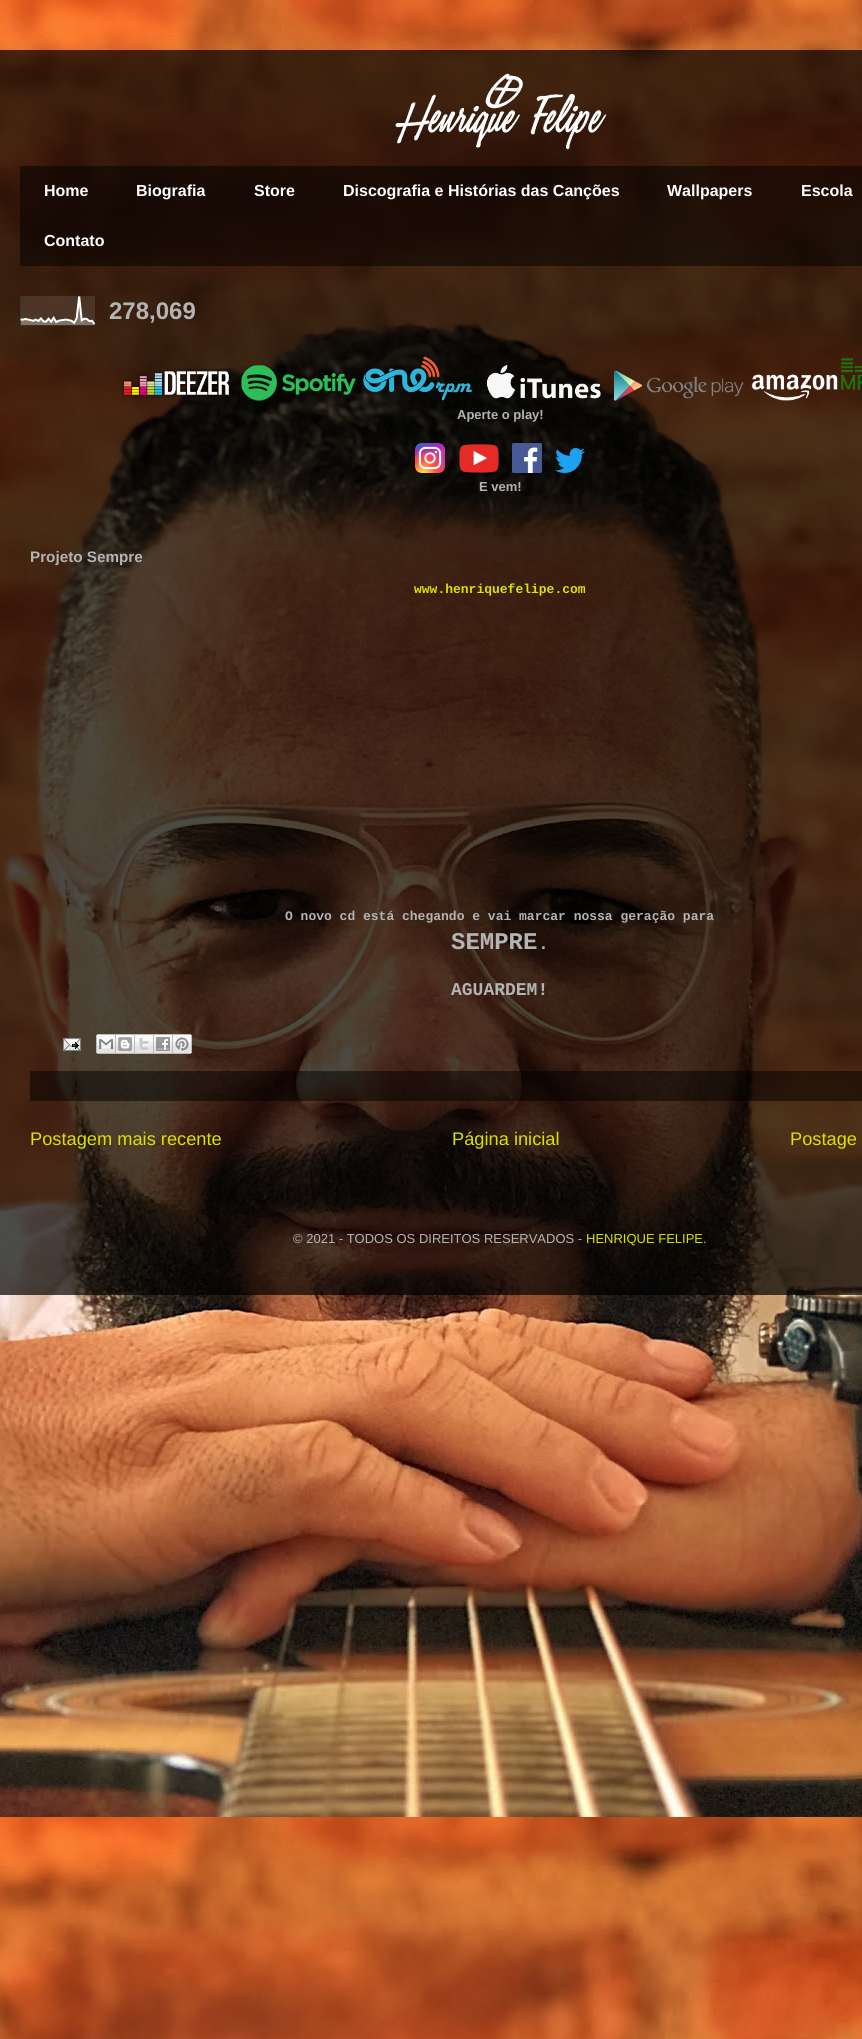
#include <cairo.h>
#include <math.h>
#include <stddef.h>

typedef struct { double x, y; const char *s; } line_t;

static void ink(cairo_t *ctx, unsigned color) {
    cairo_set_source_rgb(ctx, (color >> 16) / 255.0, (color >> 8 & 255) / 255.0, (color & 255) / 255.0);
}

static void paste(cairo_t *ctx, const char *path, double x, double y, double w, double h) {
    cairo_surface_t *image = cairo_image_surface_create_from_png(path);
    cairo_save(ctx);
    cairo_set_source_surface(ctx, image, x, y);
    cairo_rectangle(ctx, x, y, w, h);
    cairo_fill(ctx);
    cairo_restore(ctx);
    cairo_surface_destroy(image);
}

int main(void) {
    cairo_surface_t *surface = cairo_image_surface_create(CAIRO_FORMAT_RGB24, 862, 2039);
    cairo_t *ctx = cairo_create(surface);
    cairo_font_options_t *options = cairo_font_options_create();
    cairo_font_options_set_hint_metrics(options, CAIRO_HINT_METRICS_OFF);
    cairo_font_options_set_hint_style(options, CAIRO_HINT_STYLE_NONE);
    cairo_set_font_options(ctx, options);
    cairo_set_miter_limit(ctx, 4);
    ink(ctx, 0xFFFFFF);
    cairo_paint(ctx);
    paste(ctx, "media/1.png", 0, 0, 862, 2039);
    cairo_set_source_rgba(ctx, 0, 0, 0, 0.7);
    cairo_rectangle(ctx, 0, 50, 862, 1245);
    cairo_fill(ctx);
    paste(ctx, "media/2.png", 395, 73, 212, 77);
    cairo_set_source_rgba(ctx, 0, 0, 0, 0.5);
    cairo_rectangle(ctx, 20, 166, 842, 100);
    cairo_fill(ctx);
    cairo_select_font_face(ctx, "Liberation Sans", CAIRO_FONT_SLANT_NORMAL, CAIRO_FONT_WEIGHT_BOLD);
    cairo_set_font_size(ctx, 16);
    ink(ctx, 0xFFFFFF);
    {
        static const line_t items[] = {
            {44, 196, "Home"},
            {136, 196, "Biografia"},
            {254, 196, "Store"},
            {343, 196, "Discografia e Histórias das Canções"},
            {667, 196, "Wallpapers"},
            {801, 196, "Escola"},
            {44, 246, "Contato"},
        };
        for (size_t i = 0; i < sizeof items / sizeof *items; i++) {
            cairo_move_to(ctx, items[i].x, items[i].y);
            cairo_show_text(ctx, items[i].s);
        }
    }
    paste(ctx, "media/3.png", 20, 296, 75, 30);
    cairo_set_font_size(ctx, 24);
    ink(ctx, 0xB4B4B4);
    cairo_move_to(ctx, 109, 319);
    cairo_show_text(ctx, "278,069");
    paste(ctx, "media/4.png", 121, 368, 110, 30);
    paste(ctx, "media/5.png", 241, 365, 115, 36);
    paste(ctx, "media/6.png", 363, 356, 109, 45);
    paste(ctx, "media/7.png", 486, 365, 115, 34);
    paste(ctx, "media/8.png", 614, 370, 130, 31);
    paste(ctx, "media/9.png", 751, 358, 111, 43);
    cairo_set_font_size(ctx, 13);
    cairo_move_to(ctx, 457, 419);
    cairo_show_text(ctx, "Aperte o play!");
    paste(ctx, "media/10.png", 415, 443, 30, 30);
    paste(ctx, "media/11.png", 459, 444, 40, 29);
    paste(ctx, "media/12.png", 512, 443, 30, 30);
    paste(ctx, "media/13.png", 555, 448, 30, 25);
    cairo_move_to(ctx, 479, 491);
    cairo_show_text(ctx, "E vem!");
    cairo_set_font_size(ctx, 15.25);
    cairo_move_to(ctx, 30, 562);
    cairo_show_text(ctx, "Projeto Sempre");
    cairo_select_font_face(ctx, "Liberation Mono", CAIRO_FONT_SLANT_NORMAL, CAIRO_FONT_WEIGHT_BOLD);
    cairo_set_font_size(ctx, 13);
    ink(ctx, 0xD9E200);
    cairo_move_to(ctx, 414, 593);
    cairo_show_text(ctx, "www.henriquefelipe.com");
    ink(ctx, 0xB4B4B4);
    cairo_move_to(ctx, 285, 920);
    cairo_show_text(ctx, "O novo cd está chegando e vai marcar nossa geração para");
    cairo_set_font_size(ctx, 24);
    cairo_move_to(ctx, 451, 949);
    cairo_show_text(ctx, "SEMPRE");
    cairo_set_font_size(ctx, 18);
    cairo_move_to(ctx, 538, 949);
    cairo_show_text(ctx, ".");
    cairo_move_to(ctx, 451, 995);
    cairo_show_text(ctx, "AGUARDEM!");
    paste(ctx, "media/14.png", 63, 1038, 18, 13);
    paste(ctx, "media/15.png", 96, 1034, 20, 20);
    paste(ctx, "media/16.png", 116, 1034, 19, 20);
    paste(ctx, "media/17.png", 135, 1034, 19, 20);
    paste(ctx, "media/18.png", 154, 1034, 19, 20);
    paste(ctx, "media/19.png", 173, 1034, 19, 20);
    cairo_set_source_rgba(ctx, 0, 0, 0, 0.5);
    cairo_rectangle(ctx, 30, 1071, 832, 30);
    cairo_fill(ctx);
    cairo_select_font_face(ctx, "Liberation Sans", CAIRO_FONT_SLANT_NORMAL, CAIRO_FONT_WEIGHT_NORMAL);
    cairo_set_font_size(ctx, 18.25);
    ink(ctx, 0xD9E200);
    {
        static const line_t items[] = {
            {30, 1145, "Postagem mais recente"},
            {452, 1145, "Página inicial"},
            {790, 1145, "Postage"},
        };
        for (size_t i = 0; i < sizeof items / sizeof *items; i++) {
            cairo_move_to(ctx, items[i].x, items[i].y);
            cairo_show_text(ctx, items[i].s);
        }
    }
    cairo_set_font_size(ctx, 13);
    ink(ctx, 0xB4B4B4);
    cairo_move_to(ctx, 293, 1243);
    cairo_show_text(ctx, "© 2021 - TODOS OS DIREITOS RESERVADOS -");
    ink(ctx, 0xD9E200);
    cairo_move_to(ctx, 586, 1243);
    cairo_show_text(ctx, "HENRIQUE FELIPE");
    ink(ctx, 0xB4B4B4);
    cairo_move_to(ctx, 703, 1243);
    cairo_show_text(ctx, ".");
    cairo_surface_write_to_png(surface, "image.png");
    cairo_font_options_destroy(options);
    cairo_destroy(ctx);
    cairo_surface_destroy(surface);
    return 0;
}
